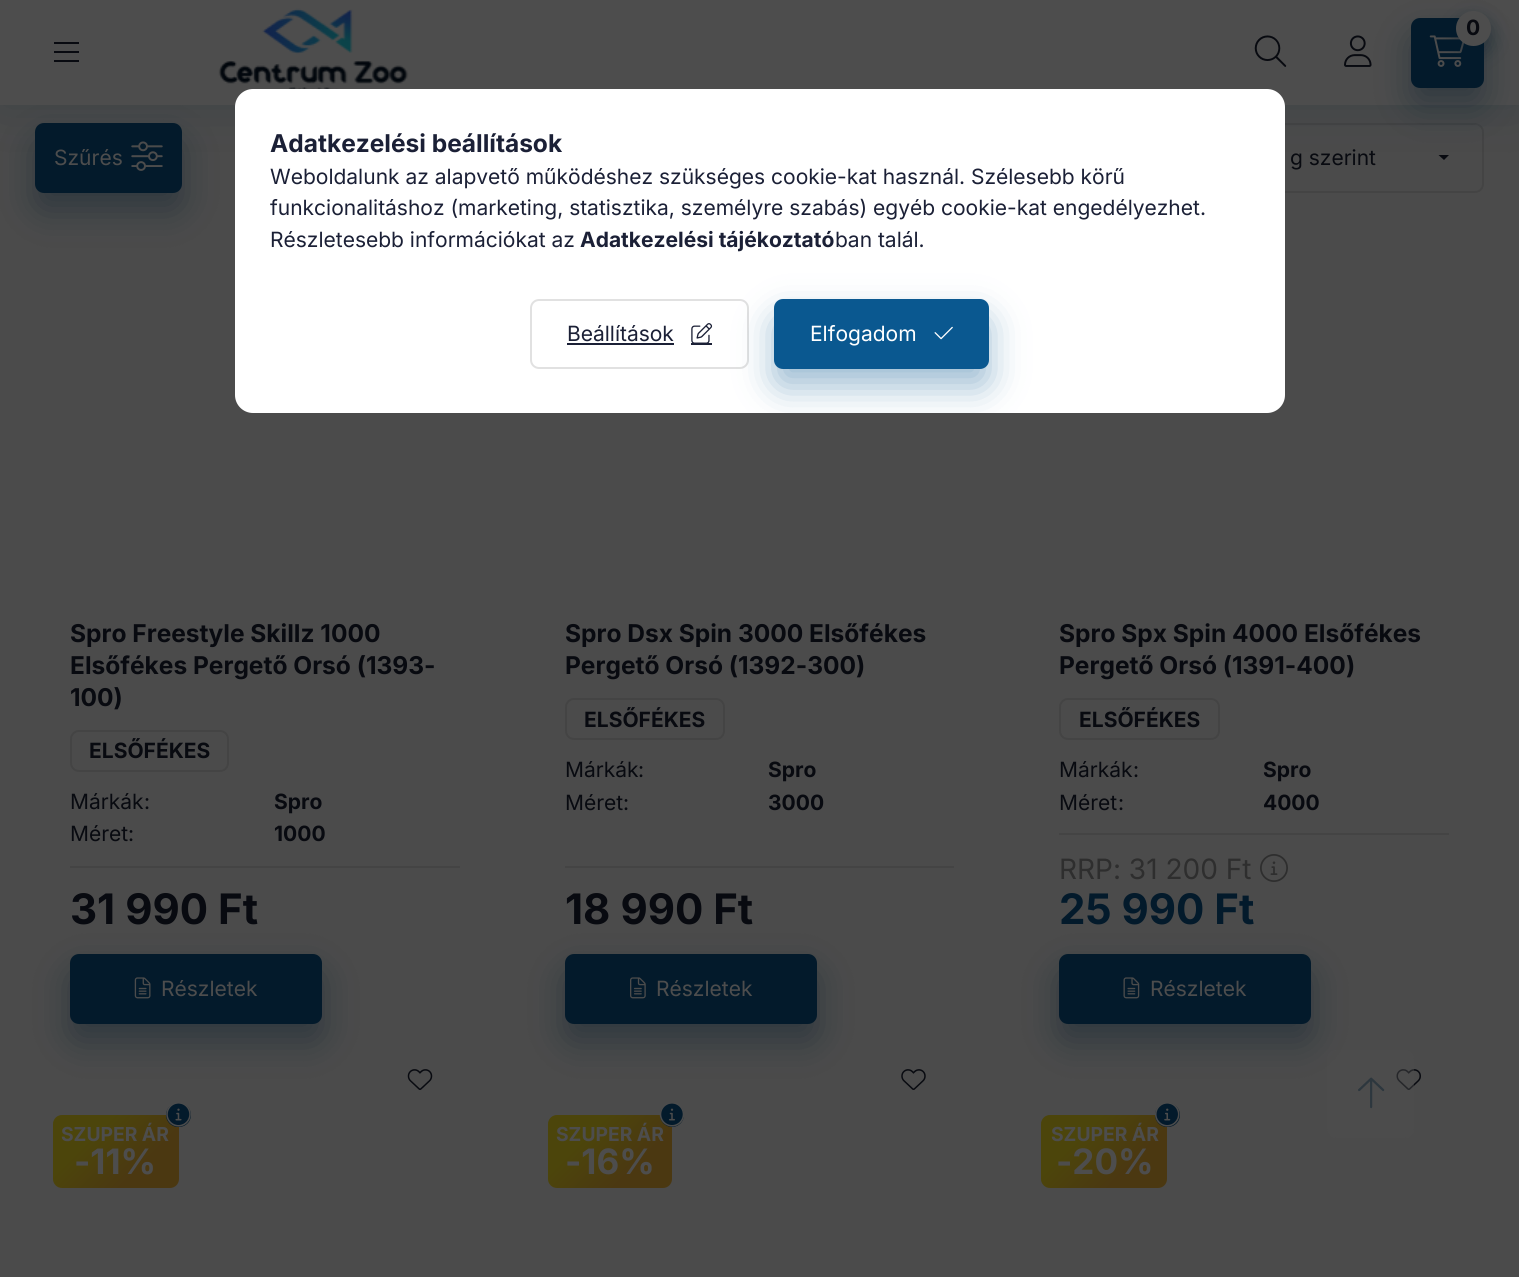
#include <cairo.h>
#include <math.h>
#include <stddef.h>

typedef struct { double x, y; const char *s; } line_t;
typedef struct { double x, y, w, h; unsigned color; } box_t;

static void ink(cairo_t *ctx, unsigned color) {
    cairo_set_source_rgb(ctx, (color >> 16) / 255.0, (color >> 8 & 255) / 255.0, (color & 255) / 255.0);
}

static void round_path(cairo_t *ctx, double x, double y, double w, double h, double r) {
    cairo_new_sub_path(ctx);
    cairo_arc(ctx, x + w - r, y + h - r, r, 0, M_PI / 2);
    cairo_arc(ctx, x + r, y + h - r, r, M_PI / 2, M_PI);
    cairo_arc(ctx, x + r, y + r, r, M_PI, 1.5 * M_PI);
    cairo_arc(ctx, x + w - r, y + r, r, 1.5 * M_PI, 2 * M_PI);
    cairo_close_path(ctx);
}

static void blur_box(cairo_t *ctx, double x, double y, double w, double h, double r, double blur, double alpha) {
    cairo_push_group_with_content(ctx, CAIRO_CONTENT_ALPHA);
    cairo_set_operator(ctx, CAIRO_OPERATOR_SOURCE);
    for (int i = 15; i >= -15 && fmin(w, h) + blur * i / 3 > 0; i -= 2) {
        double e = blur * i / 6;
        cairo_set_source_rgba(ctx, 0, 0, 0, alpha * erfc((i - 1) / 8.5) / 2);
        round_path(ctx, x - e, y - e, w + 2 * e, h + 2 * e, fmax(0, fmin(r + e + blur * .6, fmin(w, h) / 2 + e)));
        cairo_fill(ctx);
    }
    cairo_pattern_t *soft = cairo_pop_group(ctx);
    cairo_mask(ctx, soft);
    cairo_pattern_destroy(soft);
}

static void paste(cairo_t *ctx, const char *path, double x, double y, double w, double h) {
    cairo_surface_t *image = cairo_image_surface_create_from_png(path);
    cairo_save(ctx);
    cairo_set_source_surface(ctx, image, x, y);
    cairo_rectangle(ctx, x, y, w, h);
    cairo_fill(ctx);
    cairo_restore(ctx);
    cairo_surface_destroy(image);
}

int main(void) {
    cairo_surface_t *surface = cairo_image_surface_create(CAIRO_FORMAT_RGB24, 1519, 1277);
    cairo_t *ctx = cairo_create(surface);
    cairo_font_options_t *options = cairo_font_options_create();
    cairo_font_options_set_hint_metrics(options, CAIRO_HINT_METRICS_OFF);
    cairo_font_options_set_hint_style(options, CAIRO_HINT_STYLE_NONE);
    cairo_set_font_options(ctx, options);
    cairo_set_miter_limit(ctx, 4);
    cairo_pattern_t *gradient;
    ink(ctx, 0x4B4B4B);
    cairo_paint(ctx);
    ink(ctx, 0x031A2B);
    blur_box(ctx, 35, 140, 147, 70, 9, 17.5, 0.4);
    ink(ctx, 0x031A2B);
    round_path(ctx, 36, 124, 145, 68, 8);
    cairo_fill_preserve(ctx);
    cairo_stroke(ctx);
    paste(ctx, "media/5.png", 131, 141, 32, 30);
    round_path(ctx, 1135, 124, 348, 68, 8);
    ink(ctx, 0x444444);
    cairo_stroke(ctx);
    ink(ctx, 0x080A10);
    cairo_new_path(ctx);
    cairo_move_to(ctx, 1438.5, 155);
    cairo_line_to(ctx, 1449, 155);
    cairo_line_to(ctx, 1444, 160);
    cairo_close_path(ctx);
    cairo_fill(ctx);
    ink(ctx, 0x031A2B);
    blur_box(ctx, 0, 0, 1519, 105, 0, 26, 0.2);
    {
        static const box_t items[] = {
            {0, 0, 1519, 105, 0x4D4D4D},
            {54, 42, 25, 2, 0x080A10},
            {54, 51, 25, 2, 0x080A10},
            {54, 60, 25, 2, 0x080A10},
        };
        for (size_t i = 0; i < sizeof items / sizeof *items; i++) {
            ink(ctx, items[i].color);
            cairo_rectangle(ctx, items[i].x, items[i].y, items[i].w, items[i].h);
            cairo_fill(ctx);
        }
    }
    paste(ctx, "media/1.png", 218, 8, 191, 81);
    paste(ctx, "media/4.png", 1344, 35, 28, 32);
    ink(ctx, 0x031A2B);
    blur_box(ctx, 1411, 35, 73, 70, 9, 17.5, 0.4);
    ink(ctx, 0x031A2B);
    round_path(ctx, 1411, 18, 73, 70, 9);
    cairo_fill(ctx);
    paste(ctx, "media/2.png", 1429, 35, 36, 32);
    ink(ctx, 0x031A2B);
    blur_box(ctx, 1456, 19, 35, 35, 17.5, 9, 0.4);
    ink(ctx, 0x4D4D4D);
    cairo_arc(ctx, 1473.5, 28.5, 17.5, 0, 2 * M_PI);
    cairo_fill(ctx);
    cairo_select_font_face(ctx, "Inter", CAIRO_FONT_SLANT_NORMAL, CAIRO_FONT_WEIGHT_BOLD);
    cairo_set_font_size(ctx, 21);
    ink(ctx, 0x080A10);
    cairo_move_to(ctx, 1466, 35);
    cairo_show_text(ctx, "0");
    paste(ctx, "media/3.png", 1254, 35, 33, 32);
    cairo_select_font_face(ctx, "Inter", CAIRO_FONT_SLANT_NORMAL, CAIRO_FONT_WEIGHT_NORMAL);
    ink(ctx, 0x4D4D4D);
    cairo_move_to(ctx, 54, 165);
    cairo_show_text(ctx, "Szűrés");
    ink(ctx, 0x080A10);
    cairo_move_to(ctx, 1290, 165);
    cairo_show_text(ctx, "g szerint");
    cairo_select_font_face(ctx, "Inter", CAIRO_FONT_SLANT_NORMAL, CAIRO_FONT_WEIGHT_BOLD);
    cairo_set_font_size(ctx, 24.5);
    {
        static const line_t items[] = {
            {70, 642, "Spro Freestyle Skillz 1000"},
            {70, 674, "Elsőfékes Pergető Orsó (1393-"},
            {70, 706, "100)"},
        };
        for (size_t i = 0; i < sizeof items / sizeof *items; i++) {
            cairo_move_to(ctx, items[i].x, items[i].y);
            cairo_show_text(ctx, items[i].s);
        }
    }
    round_path(ctx, 71, 731, 157, 40, 8);
    ink(ctx, 0x444444);
    cairo_stroke(ctx);
    cairo_set_font_size(ctx, 21);
    ink(ctx, 0x080A10);
    cairo_move_to(ctx, 89, 758);
    cairo_show_text(ctx, "ELSŐFÉKES");
    cairo_select_font_face(ctx, "Inter", CAIRO_FONT_SLANT_NORMAL, CAIRO_FONT_WEIGHT_NORMAL);
    cairo_move_to(ctx, 70, 809);
    cairo_show_text(ctx, "Márkák");
    cairo_move_to(ctx, 144, 809);
    cairo_show_text(ctx, ":");
    cairo_select_font_face(ctx, "Inter", CAIRO_FONT_SLANT_NORMAL, CAIRO_FONT_WEIGHT_BOLD);
    cairo_move_to(ctx, 274, 809);
    cairo_show_text(ctx, "Spro");
    cairo_select_font_face(ctx, "Inter", CAIRO_FONT_SLANT_NORMAL, CAIRO_FONT_WEIGHT_NORMAL);
    cairo_move_to(ctx, 70, 841);
    cairo_show_text(ctx, "Méret");
    cairo_move_to(ctx, 128, 841);
    cairo_show_text(ctx, ":");
    cairo_select_font_face(ctx, "Inter", CAIRO_FONT_SLANT_NORMAL, CAIRO_FONT_WEIGHT_BOLD);
    cairo_move_to(ctx, 274, 841);
    cairo_show_text(ctx, "1000");
    ink(ctx, 0x444444);
    cairo_rectangle(ctx, 70, 866, 390, 2);
    cairo_fill(ctx);
    ink(ctx, 0x031A2B);
    blur_box(ctx, 70, 971, 252, 70, 9, 17.5, 0.4);
    cairo_set_font_size(ctx, 42);
    ink(ctx, 0x080A10);
    cairo_move_to(ctx, 70, 924);
    cairo_show_text(ctx, "31 990 Ft");
    ink(ctx, 0x031A2B);
    round_path(ctx, 70, 954, 252, 70, 9);
    cairo_fill(ctx);
    paste(ctx, "media/6.png", 134, 977, 17, 22);
    cairo_select_font_face(ctx, "Inter", CAIRO_FONT_SLANT_NORMAL, CAIRO_FONT_WEIGHT_NORMAL);
    cairo_set_font_size(ctx, 21);
    ink(ctx, 0x4D4D4D);
    cairo_move_to(ctx, 161, 996);
    cairo_show_text(ctx, "Részletek");
    cairo_select_font_face(ctx, "Inter", CAIRO_FONT_SLANT_NORMAL, CAIRO_FONT_WEIGHT_BOLD);
    cairo_set_font_size(ctx, 24.5);
    ink(ctx, 0x080A10);
    cairo_move_to(ctx, 565, 642);
    cairo_show_text(ctx, "Spro Dsx Spin 3000 Elsőfékes");
    cairo_move_to(ctx, 565, 674);
    cairo_show_text(ctx, "Pergető Orsó (1392-300)");
    round_path(ctx, 566, 699, 158, 40, 8);
    ink(ctx, 0x444444);
    cairo_stroke(ctx);
    cairo_set_font_size(ctx, 21);
    ink(ctx, 0x080A10);
    cairo_move_to(ctx, 584, 727);
    cairo_show_text(ctx, "ELSŐFÉKES");
    cairo_select_font_face(ctx, "Inter", CAIRO_FONT_SLANT_NORMAL, CAIRO_FONT_WEIGHT_NORMAL);
    cairo_move_to(ctx, 565, 777);
    cairo_show_text(ctx, "Márkák");
    cairo_move_to(ctx, 638, 777);
    cairo_show_text(ctx, ":");
    cairo_select_font_face(ctx, "Inter", CAIRO_FONT_SLANT_NORMAL, CAIRO_FONT_WEIGHT_BOLD);
    cairo_move_to(ctx, 768, 777);
    cairo_show_text(ctx, "Spro");
    cairo_select_font_face(ctx, "Inter", CAIRO_FONT_SLANT_NORMAL, CAIRO_FONT_WEIGHT_NORMAL);
    cairo_move_to(ctx, 565, 810);
    cairo_show_text(ctx, "Méret");
    cairo_move_to(ctx, 623, 810);
    cairo_show_text(ctx, ":");
    cairo_select_font_face(ctx, "Inter", CAIRO_FONT_SLANT_NORMAL, CAIRO_FONT_WEIGHT_BOLD);
    cairo_move_to(ctx, 768, 810);
    cairo_show_text(ctx, "3000");
    ink(ctx, 0x444444);
    cairo_rectangle(ctx, 565, 866, 389, 2);
    cairo_fill(ctx);
    ink(ctx, 0x031A2B);
    blur_box(ctx, 565, 971, 252, 70, 9, 17.5, 0.4);
    cairo_set_font_size(ctx, 42);
    ink(ctx, 0x080A10);
    cairo_move_to(ctx, 565, 924);
    cairo_show_text(ctx, "18 990 Ft");
    ink(ctx, 0x031A2B);
    round_path(ctx, 565, 954, 252, 70, 9);
    cairo_fill(ctx);
    paste(ctx, "media/7.png", 630, 977, 16, 22);
    cairo_select_font_face(ctx, "Inter", CAIRO_FONT_SLANT_NORMAL, CAIRO_FONT_WEIGHT_NORMAL);
    cairo_set_font_size(ctx, 21);
    ink(ctx, 0x4D4D4D);
    cairo_move_to(ctx, 656, 996);
    cairo_show_text(ctx, "Részletek");
    cairo_select_font_face(ctx, "Inter", CAIRO_FONT_SLANT_NORMAL, CAIRO_FONT_WEIGHT_BOLD);
    cairo_set_font_size(ctx, 24.5);
    ink(ctx, 0x080A10);
    cairo_move_to(ctx, 1059, 642);
    cairo_show_text(ctx, "Spro Spx Spin 4000 Elsőfékes");
    cairo_move_to(ctx, 1059, 674);
    cairo_show_text(ctx, "Pergető Orsó (1391-400)");
    round_path(ctx, 1060, 699, 159, 40, 8);
    ink(ctx, 0x444444);
    cairo_stroke(ctx);
    cairo_set_font_size(ctx, 21);
    ink(ctx, 0x080A10);
    cairo_move_to(ctx, 1079, 727);
    cairo_show_text(ctx, "ELSŐFÉKES");
    cairo_select_font_face(ctx, "Inter", CAIRO_FONT_SLANT_NORMAL, CAIRO_FONT_WEIGHT_NORMAL);
    cairo_move_to(ctx, 1059, 777);
    cairo_show_text(ctx, "Márkák");
    cairo_move_to(ctx, 1133, 777);
    cairo_show_text(ctx, ":");
    cairo_select_font_face(ctx, "Inter", CAIRO_FONT_SLANT_NORMAL, CAIRO_FONT_WEIGHT_BOLD);
    cairo_move_to(ctx, 1263, 777);
    cairo_show_text(ctx, "Spro");
    cairo_select_font_face(ctx, "Inter", CAIRO_FONT_SLANT_NORMAL, CAIRO_FONT_WEIGHT_NORMAL);
    cairo_move_to(ctx, 1059, 810);
    cairo_show_text(ctx, "Méret");
    cairo_move_to(ctx, 1118, 810);
    cairo_show_text(ctx, ":");
    cairo_select_font_face(ctx, "Inter", CAIRO_FONT_SLANT_NORMAL, CAIRO_FONT_WEIGHT_BOLD);
    cairo_move_to(ctx, 1263, 810);
    cairo_show_text(ctx, "4000");
    ink(ctx, 0x444444);
    cairo_rectangle(ctx, 1059, 833, 390, 2);
    cairo_fill(ctx);
    cairo_select_font_face(ctx, "Inter", CAIRO_FONT_SLANT_NORMAL, CAIRO_FONT_WEIGHT_NORMAL);
    cairo_set_font_size(ctx, 28);
    ink(ctx, 0x2E2E2E);
    cairo_move_to(ctx, 1059, 879);
    cairo_show_text(ctx, "RRP: 31 200 Ft");
    paste(ctx, "media/8.png", 1260, 854, 28, 28);
    ink(ctx, 0x031A2B);
    blur_box(ctx, 1059, 971, 252, 70, 9, 17.5, 0.4);
    cairo_select_font_face(ctx, "Inter", CAIRO_FONT_SLANT_NORMAL, CAIRO_FONT_WEIGHT_BOLD);
    cairo_set_font_size(ctx, 42);
    ink(ctx, 0x031A2B);
    cairo_move_to(ctx, 1059, 924);
    cairo_show_text(ctx, "25 990 Ft");
    round_path(ctx, 1059, 954, 252, 70, 9);
    cairo_fill(ctx);
    paste(ctx, "media/9.png", 1123, 977, 17, 22);
    cairo_select_font_face(ctx, "Inter", CAIRO_FONT_SLANT_NORMAL, CAIRO_FONT_WEIGHT_NORMAL);
    cairo_set_font_size(ctx, 21);
    ink(ctx, 0x4D4D4D);
    cairo_move_to(ctx, 1150, 996);
    cairo_show_text(ctx, "Részletek");
    paste(ctx, "media/10.png", 407, 1069, 26, 21);
    gradient = cairo_pattern_create_linear(66, 1102, 165, 1201);
    cairo_pattern_add_color_stop_rgba(gradient, 0.3, 0.298, 0.271, 0.043, 1);
    cairo_pattern_add_color_stop_rgba(gradient, 0.7, 0.294, 0.22, 0.067, 1);
    cairo_set_source(ctx, gradient);
    cairo_pattern_destroy(gradient);
    round_path(ctx, 53, 1115, 126, 73, 9);
    cairo_fill(ctx);
    cairo_select_font_face(ctx, "Inter", CAIRO_FONT_SLANT_NORMAL, CAIRO_FONT_WEIGHT_BOLD);
    cairo_set_font_size(ctx, 19.25);
    ink(ctx, 0x4D4D4D);
    cairo_move_to(ctx, 61, 1141);
    cairo_show_text(ctx, "SZUPER ÁR");
    ink(ctx, 0x031A2B);
    round_path(ctx, 166, 1103, 25, 24, 12);
    cairo_fill(ctx);
    paste(ctx, "media/11.png", 166, 1103, 25, 24);
    cairo_set_font_size(ctx, 35);
    ink(ctx, 0x4D4D4D);
    cairo_move_to(ctx, 74, 1174);
    cairo_show_text(ctx, "-11%");
    paste(ctx, "media/12.png", 901, 1069, 25, 21);
    gradient = cairo_pattern_create_linear(560, 1102, 659, 1201);
    cairo_pattern_add_color_stop_rgba(gradient, 0.3, 0.298, 0.271, 0.043, 1);
    cairo_pattern_add_color_stop_rgba(gradient, 0.7, 0.294, 0.22, 0.067, 1);
    cairo_set_source(ctx, gradient);
    cairo_pattern_destroy(gradient);
    round_path(ctx, 548, 1115, 124, 73, 9);
    cairo_fill(ctx);
    cairo_set_font_size(ctx, 19.25);
    ink(ctx, 0x4D4D4D);
    cairo_move_to(ctx, 556, 1141);
    cairo_show_text(ctx, "SZUPER ÁR");
    ink(ctx, 0x031A2B);
    cairo_new_path(ctx);
    cairo_arc(ctx, 672, 1115, 12, 0, 2 * M_PI);
    cairo_fill(ctx);
    paste(ctx, "media/13.png", 659, 1103, 25, 24);
    cairo_set_font_size(ctx, 35);
    ink(ctx, 0x4D4D4D);
    cairo_move_to(ctx, 565, 1174);
    cairo_show_text(ctx, "-16%");
    paste(ctx, "media/14.png", 1396, 1069, 25, 21);
    gradient = cairo_pattern_create_linear(1054, 1102, 1154, 1201);
    cairo_pattern_add_color_stop_rgba(gradient, 0.3, 0.298, 0.271, 0.043, 1);
    cairo_pattern_add_color_stop_rgba(gradient, 0.7, 0.294, 0.22, 0.067, 1);
    cairo_set_source(ctx, gradient);
    cairo_pattern_destroy(gradient);
    round_path(ctx, 1041, 1115, 126, 73, 9);
    cairo_fill(ctx);
    cairo_set_font_size(ctx, 19.25);
    ink(ctx, 0x4D4D4D);
    cairo_move_to(ctx, 1051, 1141);
    cairo_show_text(ctx, "SZUPER ÁR");
    ink(ctx, 0x031A2B);
    round_path(ctx, 1155, 1103, 25, 24, 12);
    cairo_fill(ctx);
    paste(ctx, "media/15.png", 1155, 1103, 25, 24);
    cairo_set_font_size(ctx, 35);
    ink(ctx, 0x4D4D4D);
    cairo_move_to(ctx, 1056, 1174);
    cairo_show_text(ctx, "-20%");
    ink(ctx, 0xFFFFFF);
    round_path(ctx, 235, 89, 1050, 324, 18);
    cairo_fill(ctx);
    cairo_set_font_size(ctx, 24.5);
    ink(ctx, 0x1B2036);
    cairo_move_to(ctx, 270, 152);
    cairo_show_text(ctx, "Adatkezelési beállítások");
    cairo_select_font_face(ctx, "Inter", CAIRO_FONT_SLANT_NORMAL, CAIRO_FONT_WEIGHT_NORMAL);
    cairo_set_font_size(ctx, 21);
    {
        static const line_t items[] = {
            {270, 184, "Weboldalunk az alapvető működéshez szükséges cookie-kat használ. Szélesebb körű"},
            {270, 215, "funkcionalitáshoz (marketing, statisztika, személyre szabás) egyéb cookie-kat engedélyezhet."},
            {270, 247, "Részletesebb információkat az"},
        };
        for (size_t i = 0; i < sizeof items / sizeof *items; i++) {
            cairo_move_to(ctx, items[i].x, items[i].y);
            cairo_show_text(ctx, items[i].s);
        }
    }
    cairo_select_font_face(ctx, "Inter", CAIRO_FONT_SLANT_NORMAL, CAIRO_FONT_WEIGHT_BOLD);
    cairo_move_to(ctx, 580, 247);
    cairo_show_text(ctx, "Adatkezelési tájékoztató");
    cairo_select_font_face(ctx, "Inter", CAIRO_FONT_SLANT_NORMAL, CAIRO_FONT_WEIGHT_NORMAL);
    cairo_move_to(ctx, 835, 247);
    cairo_show_text(ctx, "ban talál.");
    round_path(ctx, 531, 300, 217, 68, 8);
    ink(ctx, 0xE1E1E1);
    cairo_stroke(ctx);
    ink(ctx, 0x1B2036);
    cairo_move_to(ctx, 567, 341);
    cairo_show_text(ctx, "Beállítások");
    cairo_rectangle(ctx, 567, 343, 107, 2);
    cairo_fill(ctx);
    paste(ctx, "media/16.png", 691, 323, 22, 20);
    cairo_rectangle(ctx, 691, 343, 21, 2);
    cairo_fill(ctx);
    cairo_save(ctx);
    round_path(ctx, 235, 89, 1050, 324, 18);
    cairo_clip(ctx);
    ink(ctx, 0x0A5890);
    blur_box(ctx, 774, 317, 215, 70, 9, 17.5, 0.4);
    cairo_restore(ctx);
    ink(ctx, 0x0A5890);
    round_path(ctx, 775, 300, 213, 68, 8);
    cairo_fill_preserve(ctx);
    cairo_stroke(ctx);
    ink(ctx, 0xFFFFFF);
    cairo_move_to(ctx, 810, 341);
    cairo_show_text(ctx, "Elfogadom");
    paste(ctx, "media/17.png", 934, 326, 19, 14);
    cairo_set_source_rgba(ctx, 0.302, 0.302, 0.302, 0.43);
    round_path(ctx, 1327, 1050, 87, 88, 9);
    cairo_fill(ctx);
    paste(ctx, "media/18.png", 1358, 1077, 27, 32);
    cairo_surface_write_to_png(surface, "image.png");
    cairo_font_options_destroy(options);
    cairo_destroy(ctx);
    cairo_surface_destroy(surface);
    return 0;
}
